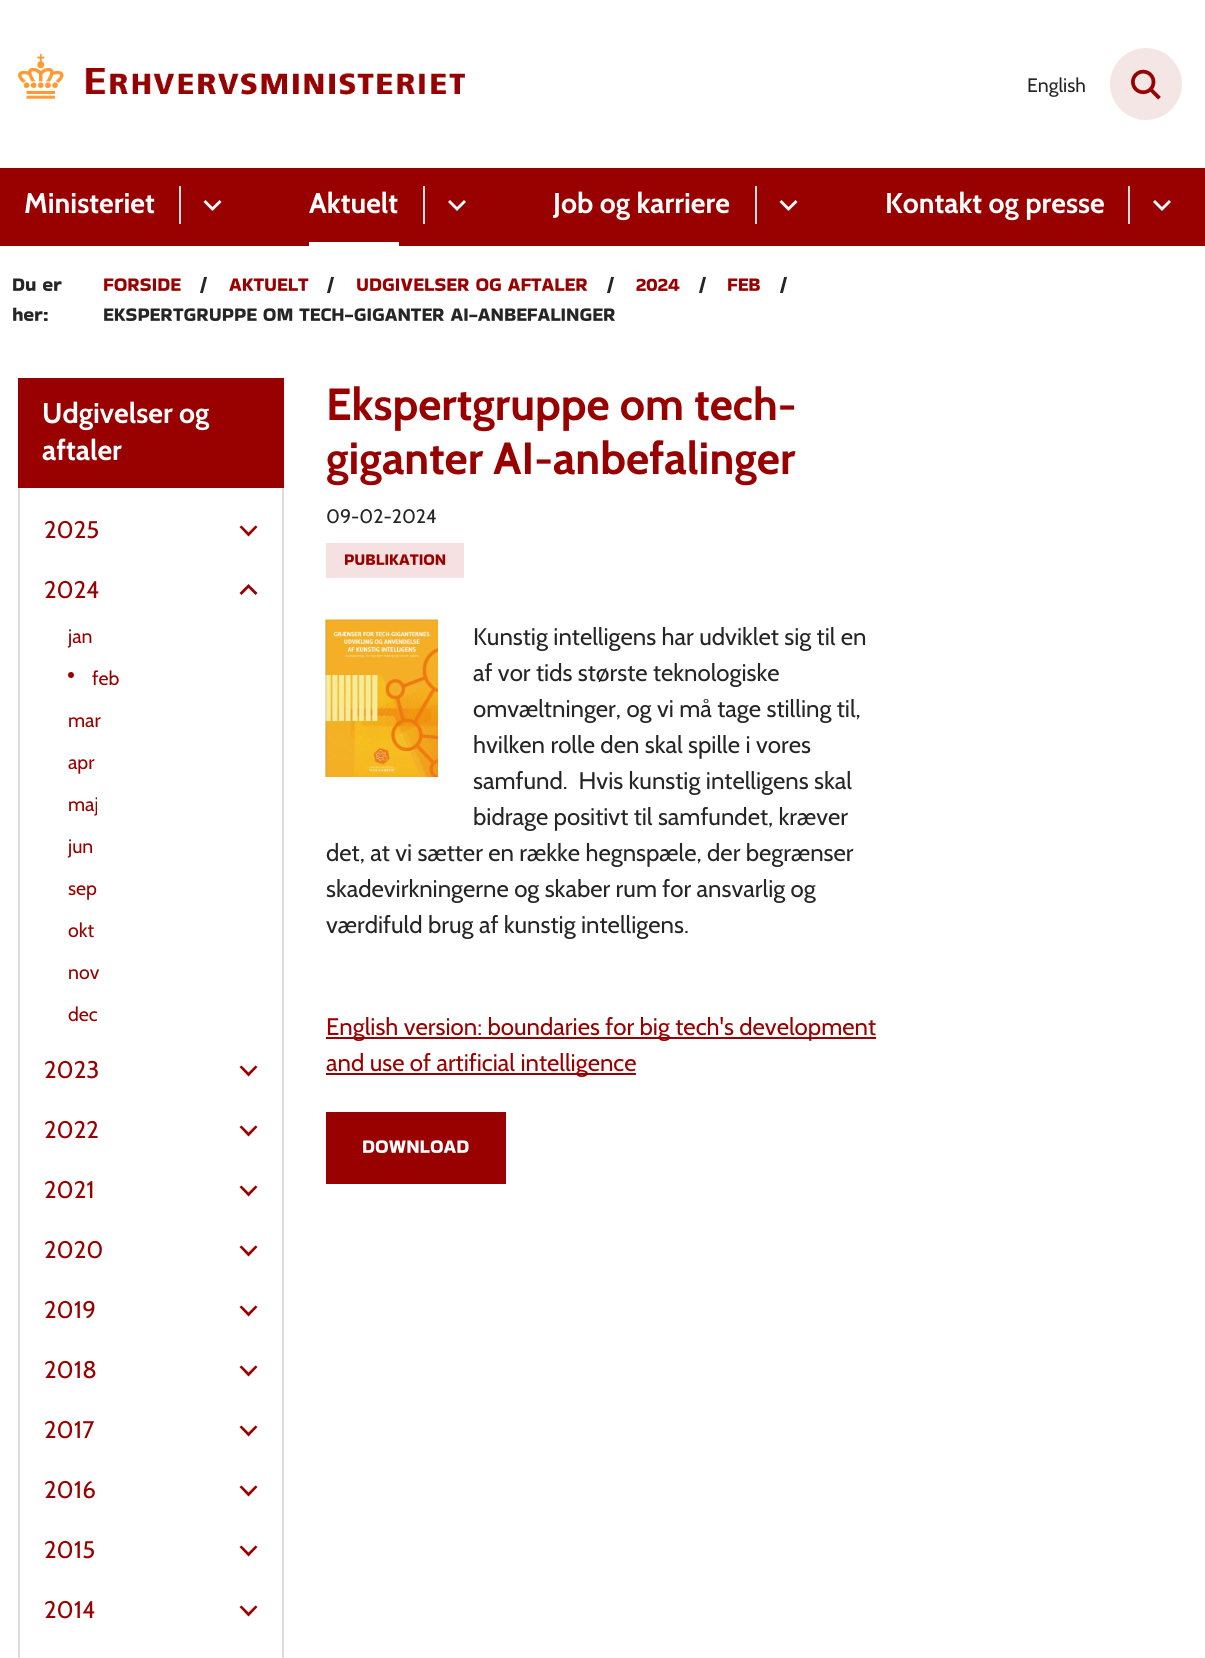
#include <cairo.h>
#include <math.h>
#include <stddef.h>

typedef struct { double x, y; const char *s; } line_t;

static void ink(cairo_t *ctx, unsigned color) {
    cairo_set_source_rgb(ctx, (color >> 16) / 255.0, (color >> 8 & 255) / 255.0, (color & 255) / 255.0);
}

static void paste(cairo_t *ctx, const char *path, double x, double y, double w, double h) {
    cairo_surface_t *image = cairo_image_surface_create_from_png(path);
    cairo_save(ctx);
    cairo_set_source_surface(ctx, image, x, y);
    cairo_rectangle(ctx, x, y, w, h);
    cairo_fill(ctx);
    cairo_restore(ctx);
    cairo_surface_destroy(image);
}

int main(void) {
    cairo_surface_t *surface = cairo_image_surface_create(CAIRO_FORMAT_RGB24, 1205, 1658);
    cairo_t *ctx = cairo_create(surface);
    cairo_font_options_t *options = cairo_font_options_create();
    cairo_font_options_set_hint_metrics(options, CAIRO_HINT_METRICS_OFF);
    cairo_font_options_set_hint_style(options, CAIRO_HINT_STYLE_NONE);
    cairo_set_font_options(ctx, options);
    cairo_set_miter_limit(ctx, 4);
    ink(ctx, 0xFFFFFF);
    cairo_paint(ctx);
    paste(ctx, "media/1.png", 18, 54, 447, 45);
    cairo_select_font_face(ctx, "Cabin", CAIRO_FONT_SLANT_NORMAL, CAIRO_FONT_WEIGHT_NORMAL);
    cairo_set_font_size(ctx, 19.5);
    ink(ctx, 0x252525);
    cairo_move_to(ctx, 1027, 92);
    cairo_show_text(ctx, "English");
    ink(ctx, 0xF5E6E6);
    cairo_new_path(ctx);
    cairo_arc(ctx, 1146, 84, 36, 0, 2 * M_PI);
    cairo_fill(ctx);
    paste(ctx, "media/2.png", 1131, 69, 30, 31);
    ink(ctx, 0x990000);
    cairo_rectangle(ctx, 0, 168, 1205, 78);
    cairo_fill(ctx);
    cairo_select_font_face(ctx, "Cabin", CAIRO_FONT_SLANT_NORMAL, CAIRO_FONT_WEIGHT_BOLD);
    cairo_set_font_size(ctx, 28.5);
    ink(ctx, 0xFFFFFF);
    cairo_move_to(ctx, 24, 213);
    cairo_show_text(ctx, "Ministeriet");
    ink(ctx, 0xDDDDDD);
    cairo_rectangle(ctx, 179, 186, 2, 38);
    cairo_fill(ctx);
    ink(ctx, 0xFFFFFF);
    cairo_new_path(ctx);
    cairo_move_to(ctx, 212.5, 211);
    cairo_line_to(ctx, 221.5, 202);
    cairo_line_to(ctx, 219.5, 200);
    cairo_line_to(ctx, 212.5, 207);
    cairo_line_to(ctx, 205.5, 200);
    cairo_line_to(ctx, 203.5, 202);
    cairo_close_path(ctx);
    cairo_fill(ctx);
    cairo_rectangle(ctx, 309, 242, 90, 4);
    cairo_fill(ctx);
    cairo_move_to(ctx, 309, 213);
    cairo_show_text(ctx, "Aktuelt");
    ink(ctx, 0xDDDDDD);
    cairo_rectangle(ctx, 423, 186, 2, 38);
    cairo_fill(ctx);
    ink(ctx, 0xFFFFFF);
    cairo_new_path(ctx);
    cairo_move_to(ctx, 457, 211);
    cairo_line_to(ctx, 466, 202);
    cairo_line_to(ctx, 464, 200);
    cairo_line_to(ctx, 457, 207);
    cairo_line_to(ctx, 450, 200);
    cairo_line_to(ctx, 448, 202);
    cairo_close_path(ctx);
    cairo_fill(ctx);
    cairo_move_to(ctx, 553, 213);
    cairo_show_text(ctx, "Job og karriere");
    ink(ctx, 0xDDDDDD);
    cairo_rectangle(ctx, 755, 186, 2, 38);
    cairo_fill(ctx);
    ink(ctx, 0xFFFFFF);
    cairo_new_path(ctx);
    cairo_move_to(ctx, 788.5, 211);
    cairo_line_to(ctx, 797.5, 202);
    cairo_line_to(ctx, 795.5, 200);
    cairo_line_to(ctx, 788.5, 207);
    cairo_line_to(ctx, 781.5, 200);
    cairo_line_to(ctx, 779.5, 202);
    cairo_close_path(ctx);
    cairo_fill(ctx);
    cairo_move_to(ctx, 885, 213);
    cairo_show_text(ctx, "Kontakt og presse");
    ink(ctx, 0xDDDDDD);
    cairo_rectangle(ctx, 1128, 186, 2, 38);
    cairo_fill(ctx);
    ink(ctx, 0xFFFFFF);
    cairo_new_path(ctx);
    cairo_move_to(ctx, 1162, 211);
    cairo_line_to(ctx, 1171, 202);
    cairo_line_to(ctx, 1169, 200);
    cairo_line_to(ctx, 1162, 207);
    cairo_line_to(ctx, 1155, 200);
    cairo_line_to(ctx, 1153, 202);
    cairo_close_path(ctx);
    cairo_fill(ctx);
    cairo_select_font_face(ctx, "Bakbak One", CAIRO_FONT_SLANT_NORMAL, CAIRO_FONT_WEIGHT_NORMAL);
    cairo_set_font_size(ctx, 19.5);
    ink(ctx, 0x252525);
    cairo_move_to(ctx, 12, 291);
    cairo_show_text(ctx, "Du er");
    cairo_move_to(ctx, 12, 321);
    cairo_show_text(ctx, "her:");
    ink(ctx, 0x990000);
    cairo_move_to(ctx, 103, 291);
    cairo_show_text(ctx, "FORSIDE");
    ink(ctx, 0x252525);
    cairo_move_to(ctx, 199, 291);
    cairo_show_text(ctx, "/");
    ink(ctx, 0x990000);
    cairo_move_to(ctx, 229, 291);
    cairo_show_text(ctx, "AKTUELT");
    ink(ctx, 0x252525);
    cairo_move_to(ctx, 326, 291);
    cairo_show_text(ctx, "/");
    ink(ctx, 0x990000);
    cairo_move_to(ctx, 356, 291);
    cairo_show_text(ctx, "UDGIVELSER OG AFTALER");
    ink(ctx, 0x252525);
    cairo_move_to(ctx, 606, 291);
    cairo_show_text(ctx, "/");
    ink(ctx, 0x990000);
    cairo_move_to(ctx, 636, 291);
    cairo_show_text(ctx, "2024");
    ink(ctx, 0x252525);
    cairo_move_to(ctx, 698, 291);
    cairo_show_text(ctx, "/");
    ink(ctx, 0x990000);
    cairo_move_to(ctx, 727, 291);
    cairo_show_text(ctx, "FEB");
    ink(ctx, 0x252525);
    cairo_move_to(ctx, 779, 291);
    cairo_show_text(ctx, "/");
    cairo_move_to(ctx, 103, 321);
    cairo_show_text(ctx, "EKSPERTGRUPPE OM TECH-GIGANTER AI-ANBEFALINGER");
    cairo_rectangle(ctx, 19, 379, 264, 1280);
    ink(ctx, 0xDDDDDD);
    cairo_stroke(ctx);
    ink(ctx, 0x990000);
    cairo_rectangle(ctx, 18, 378, 266, 110);
    cairo_fill(ctx);
    cairo_select_font_face(ctx, "Cabin", CAIRO_FONT_SLANT_NORMAL, CAIRO_FONT_WEIGHT_BOLD);
    cairo_set_font_size(ctx, 28.5);
    ink(ctx, 0xFFFFFF);
    cairo_move_to(ctx, 42, 423);
    cairo_show_text(ctx, "Udgivelser og");
    cairo_move_to(ctx, 42, 460);
    cairo_show_text(ctx, "aftaler");
    cairo_select_font_face(ctx, "Cabin", CAIRO_FONT_SLANT_NORMAL, CAIRO_FONT_WEIGHT_NORMAL);
    cairo_set_font_size(ctx, 24);
    ink(ctx, 0x990000);
    cairo_move_to(ctx, 44, 538);
    cairo_show_text(ctx, "2025");
    cairo_new_path(ctx);
    cairo_move_to(ctx, 248.5, 536.5);
    cairo_line_to(ctx, 257.5, 527);
    cairo_line_to(ctx, 255.5, 525.5);
    cairo_line_to(ctx, 248.5, 532.5);
    cairo_line_to(ctx, 241.5, 525.5);
    cairo_line_to(ctx, 239.5, 527);
    cairo_close_path(ctx);
    cairo_fill(ctx);
    cairo_move_to(ctx, 44, 598);
    cairo_show_text(ctx, "2024");
    cairo_new_path(ctx);
    cairo_move_to(ctx, 248.5, 584);
    cairo_line_to(ctx, 257.5, 593);
    cairo_line_to(ctx, 255.5, 595);
    cairo_line_to(ctx, 248.5, 588);
    cairo_line_to(ctx, 241.5, 595);
    cairo_line_to(ctx, 239.5, 593);
    cairo_close_path(ctx);
    cairo_fill(ctx);
    cairo_set_font_size(ctx, 19.5);
    cairo_move_to(ctx, 68, 643);
    cairo_show_text(ctx, "jan");
    cairo_new_path(ctx);
    cairo_arc(ctx, 71, 675, 3, 0, 2 * M_PI);
    cairo_fill(ctx);
    {
        static const line_t items[] = {
            {92, 685, "feb"},
            {68, 727, "mar"},
            {68, 769, "apr"},
            {68, 811, "maj"},
            {68, 853, "jun"},
            {68, 895, "sep"},
            {68, 937, "okt"},
            {68, 979, "nov"},
            {68, 1021, "dec"},
        };
        for (size_t i = 0; i < sizeof items / sizeof *items; i++) {
            cairo_move_to(ctx, items[i].x, items[i].y);
            cairo_show_text(ctx, items[i].s);
        }
    }
    cairo_set_font_size(ctx, 24);
    cairo_move_to(ctx, 44, 1078);
    cairo_show_text(ctx, "2023");
    cairo_new_path(ctx);
    cairo_move_to(ctx, 248.5, 1076.5);
    cairo_line_to(ctx, 257.5, 1067);
    cairo_line_to(ctx, 255.5, 1065.5);
    cairo_line_to(ctx, 248.5, 1072.5);
    cairo_line_to(ctx, 241.5, 1065.5);
    cairo_line_to(ctx, 239.5, 1067);
    cairo_close_path(ctx);
    cairo_fill(ctx);
    cairo_move_to(ctx, 44, 1138);
    cairo_show_text(ctx, "2022");
    cairo_new_path(ctx);
    cairo_move_to(ctx, 248.5, 1136.5);
    cairo_line_to(ctx, 257.5, 1127);
    cairo_line_to(ctx, 255.5, 1125.5);
    cairo_line_to(ctx, 248.5, 1132.5);
    cairo_line_to(ctx, 241.5, 1125.5);
    cairo_line_to(ctx, 239.5, 1127);
    cairo_close_path(ctx);
    cairo_fill(ctx);
    cairo_move_to(ctx, 44, 1198);
    cairo_show_text(ctx, "2021");
    cairo_new_path(ctx);
    cairo_move_to(ctx, 248.5, 1196.5);
    cairo_line_to(ctx, 257.5, 1187);
    cairo_line_to(ctx, 255.5, 1185.5);
    cairo_line_to(ctx, 248.5, 1192.5);
    cairo_line_to(ctx, 241.5, 1185.5);
    cairo_line_to(ctx, 239.5, 1187);
    cairo_close_path(ctx);
    cairo_fill(ctx);
    cairo_move_to(ctx, 44, 1258);
    cairo_show_text(ctx, "2020");
    cairo_new_path(ctx);
    cairo_move_to(ctx, 248.5, 1256.5);
    cairo_line_to(ctx, 257.5, 1247);
    cairo_line_to(ctx, 255.5, 1245.5);
    cairo_line_to(ctx, 248.5, 1252.5);
    cairo_line_to(ctx, 241.5, 1245.5);
    cairo_line_to(ctx, 239.5, 1247);
    cairo_close_path(ctx);
    cairo_fill(ctx);
    cairo_move_to(ctx, 44, 1318);
    cairo_show_text(ctx, "2019");
    cairo_new_path(ctx);
    cairo_move_to(ctx, 248.5, 1316.5);
    cairo_line_to(ctx, 257.5, 1307);
    cairo_line_to(ctx, 255.5, 1305.5);
    cairo_line_to(ctx, 248.5, 1312.5);
    cairo_line_to(ctx, 241.5, 1305.5);
    cairo_line_to(ctx, 239.5, 1307);
    cairo_close_path(ctx);
    cairo_fill(ctx);
    cairo_move_to(ctx, 44, 1378);
    cairo_show_text(ctx, "2018");
    cairo_new_path(ctx);
    cairo_move_to(ctx, 248.5, 1376.5);
    cairo_line_to(ctx, 257.5, 1367);
    cairo_line_to(ctx, 255.5, 1365.5);
    cairo_line_to(ctx, 248.5, 1372.5);
    cairo_line_to(ctx, 241.5, 1365.5);
    cairo_line_to(ctx, 239.5, 1367);
    cairo_close_path(ctx);
    cairo_fill(ctx);
    cairo_move_to(ctx, 44, 1438);
    cairo_show_text(ctx, "2017");
    cairo_new_path(ctx);
    cairo_move_to(ctx, 248.5, 1436.5);
    cairo_line_to(ctx, 257.5, 1427);
    cairo_line_to(ctx, 255.5, 1425.5);
    cairo_line_to(ctx, 248.5, 1432.5);
    cairo_line_to(ctx, 241.5, 1425.5);
    cairo_line_to(ctx, 239.5, 1427);
    cairo_close_path(ctx);
    cairo_fill(ctx);
    cairo_move_to(ctx, 44, 1498);
    cairo_show_text(ctx, "2016");
    cairo_new_path(ctx);
    cairo_move_to(ctx, 248.5, 1496.5);
    cairo_line_to(ctx, 257.5, 1487);
    cairo_line_to(ctx, 255.5, 1485.5);
    cairo_line_to(ctx, 248.5, 1492.5);
    cairo_line_to(ctx, 241.5, 1485.5);
    cairo_line_to(ctx, 239.5, 1487);
    cairo_close_path(ctx);
    cairo_fill(ctx);
    cairo_move_to(ctx, 44, 1558);
    cairo_show_text(ctx, "2015");
    cairo_new_path(ctx);
    cairo_move_to(ctx, 248.5, 1556.5);
    cairo_line_to(ctx, 257.5, 1547);
    cairo_line_to(ctx, 255.5, 1545.5);
    cairo_line_to(ctx, 248.5, 1552.5);
    cairo_line_to(ctx, 241.5, 1545.5);
    cairo_line_to(ctx, 239.5, 1547);
    cairo_close_path(ctx);
    cairo_fill(ctx);
    cairo_move_to(ctx, 44, 1618);
    cairo_show_text(ctx, "2014");
    cairo_new_path(ctx);
    cairo_move_to(ctx, 248.5, 1616.5);
    cairo_line_to(ctx, 257.5, 1607);
    cairo_line_to(ctx, 255.5, 1605.5);
    cairo_line_to(ctx, 248.5, 1612.5);
    cairo_line_to(ctx, 241.5, 1605.5);
    cairo_line_to(ctx, 239.5, 1607);
    cairo_close_path(ctx);
    cairo_fill(ctx);
    cairo_select_font_face(ctx, "Cabin", CAIRO_FONT_SLANT_NORMAL, CAIRO_FONT_WEIGHT_BOLD);
    cairo_set_font_size(ctx, 45);
    cairo_move_to(ctx, 326, 420);
    cairo_show_text(ctx, "Ekspertgruppe om tech-");
    cairo_move_to(ctx, 326, 474);
    cairo_show_text(ctx, "giganter AI-anbefalinger");
    cairo_select_font_face(ctx, "Cabin", CAIRO_FONT_SLANT_NORMAL, CAIRO_FONT_WEIGHT_NORMAL);
    cairo_set_font_size(ctx, 19.5);
    ink(ctx, 0x252525);
    cairo_move_to(ctx, 326, 523);
    cairo_show_text(ctx, "09-02-2024");
    ink(ctx, 0xF5E1E1);
    cairo_rectangle(ctx, 326, 543, 138, 35);
    cairo_fill(ctx);
    cairo_select_font_face(ctx, "Bakbak One", CAIRO_FONT_SLANT_NORMAL, CAIRO_FONT_WEIGHT_NORMAL);
    cairo_set_font_size(ctx, 16.5);
    ink(ctx, 0x990000);
    cairo_move_to(ctx, 344, 565);
    cairo_show_text(ctx, "PUBLIKATION");
    paste(ctx, "media/3.png", 325, 619, 113, 158);
    cairo_select_font_face(ctx, "Cabin", CAIRO_FONT_SLANT_NORMAL, CAIRO_FONT_WEIGHT_NORMAL);
    cairo_set_font_size(ctx, 24);
    ink(ctx, 0x252525);
    {
        static const line_t items[] = {
            {473, 645, "Kunstig intelligens har udviklet sig til en"},
            {473, 681, "af vor tids største teknologiske"},
            {473, 717, "omvæltninger, og vi må tage stilling til,"},
            {473, 753, "hvilken rolle den skal spille i vores"},
            {473, 789, "samfund.  Hvis kunstig intelligens skal"},
            {473, 825, "bidrage positivt til samfundet, kræver"},
            {326, 861, "det, at vi sætter en række hegnspæle, der begrænser"},
            {326, 897, "skadevirkningerne og skaber rum for ansvarlig og"},
            {326, 933, "værdifuld brug af kunstig intelligens."},
        };
        for (size_t i = 0; i < sizeof items / sizeof *items; i++) {
            cairo_move_to(ctx, items[i].x, items[i].y);
            cairo_show_text(ctx, items[i].s);
        }
    }
    ink(ctx, 0x990000);
    cairo_rectangle(ctx, 326, 1037, 550, 2);
    cairo_fill(ctx);
    cairo_move_to(ctx, 326, 1035);
    cairo_show_text(ctx, "English version: boundaries for big tech's development");
    cairo_rectangle(ctx, 326, 1073, 310, 2);
    cairo_fill(ctx);
    cairo_move_to(ctx, 326, 1071);
    cairo_show_text(ctx, "and use of artificial intelligence");
    cairo_rectangle(ctx, 326, 1112, 180, 72);
    cairo_fill(ctx);
    cairo_select_font_face(ctx, "Bakbak One", CAIRO_FONT_SLANT_NORMAL, CAIRO_FONT_WEIGHT_NORMAL);
    cairo_set_font_size(ctx, 19.5);
    ink(ctx, 0xFFFFFF);
    cairo_move_to(ctx, 362, 1153);
    cairo_show_text(ctx, "DOWNLOAD");
    cairo_surface_write_to_png(surface, "image.png");
    cairo_font_options_destroy(options);
    cairo_destroy(ctx);
    cairo_surface_destroy(surface);
    return 0;
}
